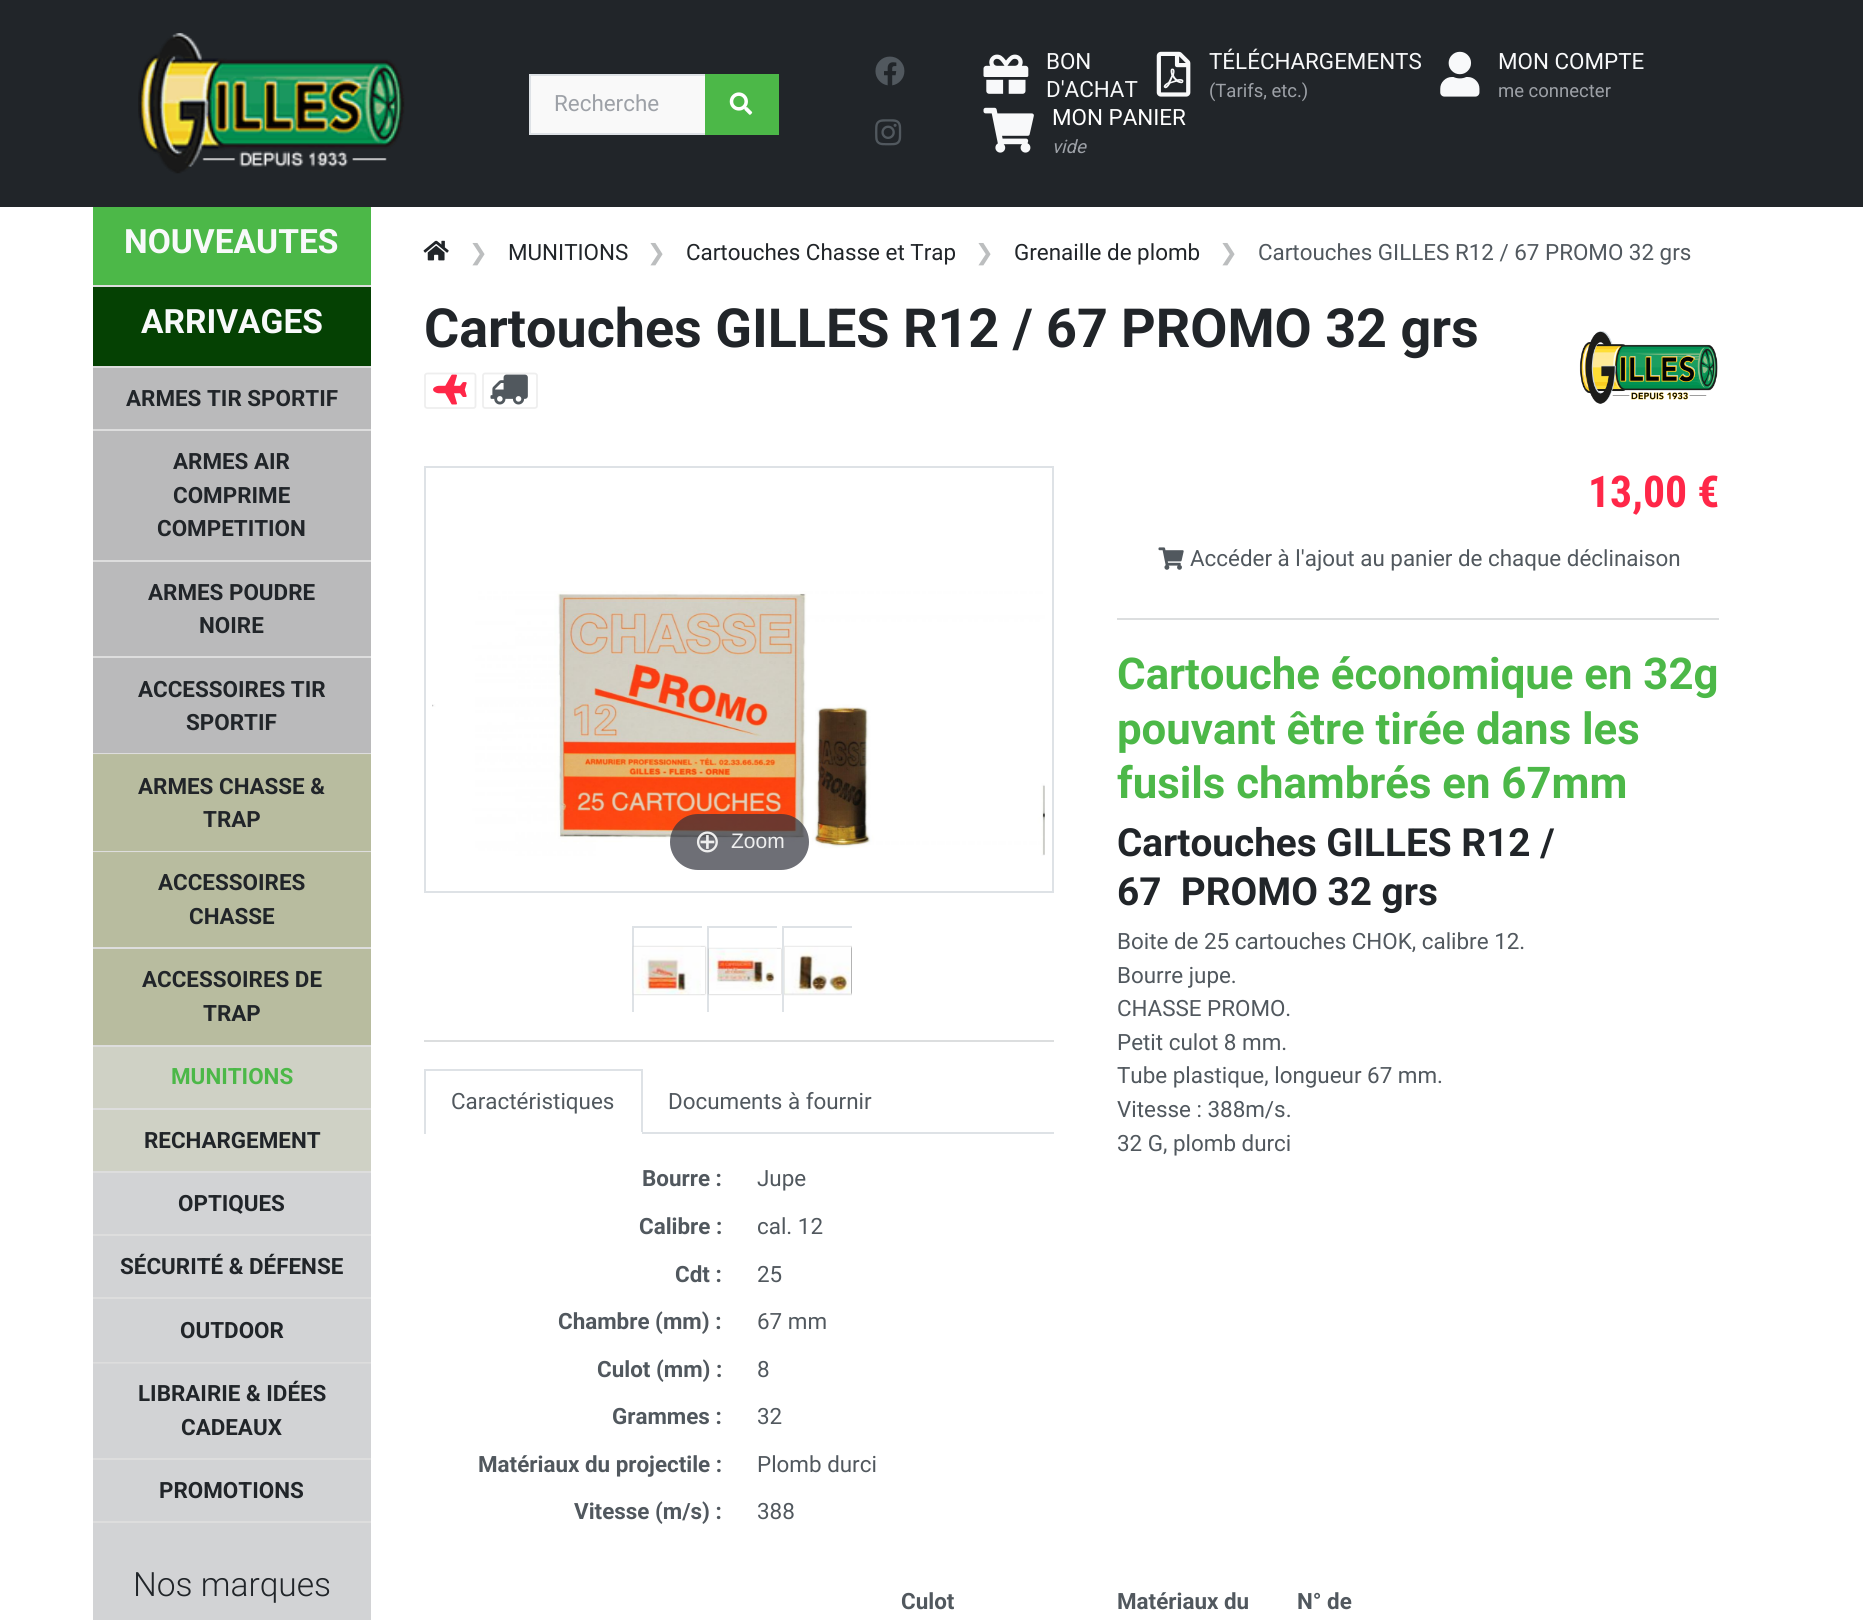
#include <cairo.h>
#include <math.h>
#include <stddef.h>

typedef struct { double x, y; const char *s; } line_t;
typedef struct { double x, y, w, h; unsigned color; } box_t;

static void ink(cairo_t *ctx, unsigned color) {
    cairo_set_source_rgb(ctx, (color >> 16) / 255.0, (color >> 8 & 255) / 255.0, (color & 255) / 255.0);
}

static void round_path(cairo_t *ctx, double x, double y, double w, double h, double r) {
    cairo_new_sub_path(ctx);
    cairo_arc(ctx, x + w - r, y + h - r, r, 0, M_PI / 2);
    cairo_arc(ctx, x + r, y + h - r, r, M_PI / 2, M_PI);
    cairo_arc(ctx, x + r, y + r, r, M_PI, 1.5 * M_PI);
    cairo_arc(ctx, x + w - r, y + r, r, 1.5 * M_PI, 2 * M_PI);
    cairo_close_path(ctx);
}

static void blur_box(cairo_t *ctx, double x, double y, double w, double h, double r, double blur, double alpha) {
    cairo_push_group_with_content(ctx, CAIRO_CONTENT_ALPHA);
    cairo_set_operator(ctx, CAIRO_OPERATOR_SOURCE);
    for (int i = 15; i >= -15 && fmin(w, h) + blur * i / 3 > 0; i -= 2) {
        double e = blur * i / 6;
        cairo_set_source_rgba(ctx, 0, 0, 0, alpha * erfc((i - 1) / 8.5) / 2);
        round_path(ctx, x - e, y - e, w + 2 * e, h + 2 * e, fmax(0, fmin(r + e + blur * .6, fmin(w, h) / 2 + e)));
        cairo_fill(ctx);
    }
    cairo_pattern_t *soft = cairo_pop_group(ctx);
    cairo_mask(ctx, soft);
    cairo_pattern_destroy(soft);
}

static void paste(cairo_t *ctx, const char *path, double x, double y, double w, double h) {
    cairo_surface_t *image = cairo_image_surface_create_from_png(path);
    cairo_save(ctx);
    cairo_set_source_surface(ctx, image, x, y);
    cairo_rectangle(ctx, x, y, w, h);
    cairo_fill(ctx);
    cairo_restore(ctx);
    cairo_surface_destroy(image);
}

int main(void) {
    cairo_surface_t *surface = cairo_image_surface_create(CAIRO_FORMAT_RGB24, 1863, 1620);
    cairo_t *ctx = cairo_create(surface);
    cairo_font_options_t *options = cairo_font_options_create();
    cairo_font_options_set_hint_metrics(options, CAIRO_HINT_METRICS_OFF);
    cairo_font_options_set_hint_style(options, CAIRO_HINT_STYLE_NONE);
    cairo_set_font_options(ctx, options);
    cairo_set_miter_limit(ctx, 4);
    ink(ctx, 0xFFFFFF);
    cairo_paint(ctx);
    ink(ctx, 0x212529);
    cairo_rectangle(ctx, 0, 0, 1863, 207);
    cairo_fill(ctx);
    paste(ctx, "media/1.png", 138, 33, 267, 141);
    ink(ctx, 0xF9F9F9);
    cairo_rectangle(ctx, 530, 75, 176, 59);
    cairo_fill_preserve(ctx);
    ink(ctx, 0xDEE2E6);
    cairo_stroke(ctx);
    cairo_select_font_face(ctx, "Roboto", CAIRO_FONT_SLANT_NORMAL, CAIRO_FONT_WEIGHT_NORMAL);
    cairo_set_font_size(ctx, 22.4);
    ink(ctx, 0x9DA1A7);
    cairo_move_to(ctx, 554, 111);
    cairo_show_text(ctx, "Recherche");
    ink(ctx, 0x4CB848);
    cairo_rectangle(ctx, 705, 74, 74, 61);
    cairo_fill(ctx);
    paste(ctx, "media/2.png", 729, 92, 24, 23);
    paste(ctx, "media/3.png", 875, 56, 30, 30);
    paste(ctx, "media/4.png", 875, 119, 27, 27);
    paste(ctx, "media/5.png", 983, 54, 46, 40);
    ink(ctx, 0xF8F9FA);
    cairo_move_to(ctx, 1046, 69);
    cairo_show_text(ctx, "BON");
    cairo_move_to(ctx, 1046, 97);
    cairo_show_text(ctx, "D'ACHAT");
    paste(ctx, "media/6.png", 1156, 51, 35, 46);
    cairo_move_to(ctx, 1209, 69);
    cairo_show_text(ctx, "TÉLÉCHARGEMENTS");
    cairo_set_font_size(ctx, 18.5);
    ink(ctx, 0x9DA1A7);
    cairo_move_to(ctx, 1209, 97);
    cairo_show_text(ctx, "(Tarifs, etc.)");
    paste(ctx, "media/7.png", 1440, 51, 40, 46);
    cairo_set_font_size(ctx, 22.4);
    ink(ctx, 0xF8F9FA);
    cairo_move_to(ctx, 1498, 69);
    cairo_show_text(ctx, "MON COMPTE");
    cairo_set_font_size(ctx, 18.5);
    ink(ctx, 0x9DA1A7);
    cairo_move_to(ctx, 1498, 97);
    cairo_show_text(ctx, "me connecter");
    paste(ctx, "media/8.png", 983, 107, 51, 46);
    cairo_set_font_size(ctx, 22.4);
    ink(ctx, 0xFFFFFF);
    cairo_move_to(ctx, 1052, 125);
    cairo_show_text(ctx, "MON PANIER");
    cairo_select_font_face(ctx, "Roboto", CAIRO_FONT_SLANT_ITALIC, CAIRO_FONT_WEIGHT_NORMAL);
    cairo_set_font_size(ctx, 18.5);
    ink(ctx, 0x9DA1A7);
    cairo_move_to(ctx, 1052, 153);
    cairo_show_text(ctx, "vide");
    {
        static const box_t items[] = {
            {93, 1173, 278, 447, 0xD2D3D5},
            {93, 853, 278, 94, 0xB8BC9F},
            {93, 755, 278, 96, 0xB8BC9F},
            {93, 207, 278, 78, 0x4CB848},
            {93, 285, 278, 2, 0xDDDDDD},
        };
        for (size_t i = 0; i < sizeof items / sizeof *items; i++) {
            ink(ctx, items[i].color);
            cairo_rectangle(ctx, items[i].x, items[i].y, items[i].w, items[i].h);
            cairo_fill(ctx);
        }
    }
    cairo_select_font_face(ctx, "Roboto", CAIRO_FONT_SLANT_NORMAL, CAIRO_FONT_WEIGHT_BOLD);
    cairo_set_font_size(ctx, 33.5);
    ink(ctx, 0xF8F9FA);
    cairo_move_to(ctx, 124, 253);
    cairo_show_text(ctx, "NOUVEAUTES");
    ink(ctx, 0x054103);
    cairo_rectangle(ctx, 93, 287, 278, 79);
    cairo_fill(ctx);
    ink(ctx, 0xDDDDDD);
    cairo_rectangle(ctx, 93, 366, 278, 2);
    cairo_fill(ctx);
    ink(ctx, 0xF8F9FA);
    cairo_move_to(ctx, 141, 333);
    cairo_show_text(ctx, "ARRIVAGES");
    ink(ctx, 0xBABABB);
    cairo_rectangle(ctx, 93, 368, 278, 61);
    cairo_fill(ctx);
    ink(ctx, 0xDDDDDD);
    cairo_rectangle(ctx, 93, 429, 278, 2);
    cairo_fill(ctx);
    cairo_set_font_size(ctx, 22.4);
    ink(ctx, 0x212529);
    cairo_move_to(ctx, 126, 406);
    cairo_show_text(ctx, "ARMES TIR SPORTIF");
    ink(ctx, 0xBABABB);
    cairo_rectangle(ctx, 93, 431, 278, 129);
    cairo_fill(ctx);
    ink(ctx, 0xDDDDDD);
    cairo_rectangle(ctx, 93, 560, 278, 2);
    cairo_fill(ctx);
    ink(ctx, 0x212529);
    {
        static const line_t items[] = {
            {173, 469, "ARMES AIR"},
            {173, 503, "COMPRIME"},
            {157, 536, "COMPETITION"},
        };
        for (size_t i = 0; i < sizeof items / sizeof *items; i++) {
            cairo_move_to(ctx, items[i].x, items[i].y);
            cairo_show_text(ctx, items[i].s);
        }
    }
    ink(ctx, 0xBABABB);
    cairo_rectangle(ctx, 93, 562, 278, 94);
    cairo_fill(ctx);
    ink(ctx, 0xDDDDDD);
    cairo_rectangle(ctx, 93, 656, 278, 2);
    cairo_fill(ctx);
    ink(ctx, 0x212529);
    cairo_move_to(ctx, 148, 600);
    cairo_show_text(ctx, "ARMES POUDRE");
    cairo_move_to(ctx, 199, 633);
    cairo_show_text(ctx, "NOIRE");
    {
        static const box_t items[] = {
            {93, 658, 278, 95, 0xBABABB},
            {93, 753, 278, 1, 0xDDDDDD},
            {93, 754, 278, 1, 0xBBBEA1},
        };
        for (size_t i = 0; i < sizeof items / sizeof *items; i++) {
            ink(ctx, items[i].color);
            cairo_rectangle(ctx, items[i].x, items[i].y, items[i].w, items[i].h);
            cairo_fill(ctx);
        }
    }
    ink(ctx, 0x212529);
    cairo_move_to(ctx, 138, 697);
    cairo_show_text(ctx, "ACCESSOIRES TIR");
    cairo_move_to(ctx, 186, 730);
    cairo_show_text(ctx, "SPORTIF");
    ink(ctx, 0xDDDDDD);
    cairo_rectangle(ctx, 93, 851, 278, 1);
    cairo_fill(ctx);
    ink(ctx, 0xBBBEA1);
    cairo_rectangle(ctx, 93, 852, 278, 1);
    cairo_fill(ctx);
    ink(ctx, 0x212529);
    cairo_move_to(ctx, 138, 794);
    cairo_show_text(ctx, "ARMES CHASSE &");
    cairo_move_to(ctx, 203, 827);
    cairo_show_text(ctx, "TRAP");
    ink(ctx, 0xDDDDDD);
    cairo_rectangle(ctx, 93, 947, 278, 2);
    cairo_fill(ctx);
    ink(ctx, 0x212529);
    cairo_move_to(ctx, 158, 890);
    cairo_show_text(ctx, "ACCESSOIRES");
    cairo_move_to(ctx, 189, 924);
    cairo_show_text(ctx, "CHASSE");
    ink(ctx, 0xB8BC9F);
    cairo_rectangle(ctx, 93, 949, 278, 96);
    cairo_fill(ctx);
    ink(ctx, 0xDDDDDD);
    cairo_rectangle(ctx, 93, 1045, 278, 2);
    cairo_fill(ctx);
    ink(ctx, 0x212529);
    cairo_move_to(ctx, 142, 987);
    cairo_show_text(ctx, "ACCESSOIRES DE");
    cairo_move_to(ctx, 203, 1021);
    cairo_show_text(ctx, "TRAP");
    ink(ctx, 0xCFD1C5);
    cairo_rectangle(ctx, 93, 1047, 278, 61);
    cairo_fill(ctx);
    ink(ctx, 0xDDDDDD);
    cairo_rectangle(ctx, 93, 1108, 278, 2);
    cairo_fill(ctx);
    ink(ctx, 0x4CB848);
    cairo_move_to(ctx, 171, 1084);
    cairo_show_text(ctx, "MUNITIONS");
    ink(ctx, 0xCFD1C5);
    cairo_rectangle(ctx, 93, 1110, 278, 61);
    cairo_fill(ctx);
    ink(ctx, 0xDDDDDD);
    cairo_rectangle(ctx, 93, 1171, 278, 2);
    cairo_fill(ctx);
    ink(ctx, 0x212529);
    cairo_move_to(ctx, 144, 1148);
    cairo_show_text(ctx, "RECHARGEMENT");
    ink(ctx, 0xDDDDDD);
    cairo_rectangle(ctx, 93, 1234, 278, 2);
    cairo_fill(ctx);
    ink(ctx, 0x212529);
    cairo_move_to(ctx, 178, 1211);
    cairo_show_text(ctx, "OPTIQUES");
    ink(ctx, 0xDDDDDD);
    cairo_rectangle(ctx, 93, 1297, 278, 2);
    cairo_fill(ctx);
    ink(ctx, 0x212529);
    cairo_move_to(ctx, 120, 1274);
    cairo_show_text(ctx, "SÉCURITÉ & DÉFENSE");
    ink(ctx, 0xDDDDDD);
    cairo_rectangle(ctx, 93, 1362, 278, 1);
    cairo_fill(ctx);
    ink(ctx, 0xD9D9DA);
    cairo_rectangle(ctx, 93, 1363, 278, 1);
    cairo_fill(ctx);
    ink(ctx, 0x212529);
    cairo_move_to(ctx, 180, 1338);
    cairo_show_text(ctx, "OUTDOOR");
    ink(ctx, 0xDDDDDD);
    cairo_rectangle(ctx, 93, 1458, 278, 2);
    cairo_fill(ctx);
    ink(ctx, 0x212529);
    cairo_move_to(ctx, 138, 1401);
    cairo_show_text(ctx, "LIBRAIRIE & IDÉES");
    cairo_move_to(ctx, 181, 1435);
    cairo_show_text(ctx, "CADEAUX");
    ink(ctx, 0xDDDDDD);
    cairo_rectangle(ctx, 93, 1521, 278, 2);
    cairo_fill(ctx);
    ink(ctx, 0x212529);
    cairo_move_to(ctx, 159, 1498);
    cairo_show_text(ctx, "PROMOTIONS");
    cairo_select_font_face(ctx, "Roboto Light", CAIRO_FONT_SLANT_NORMAL, CAIRO_FONT_WEIGHT_NORMAL);
    cairo_set_font_size(ctx, 33.5);
    cairo_move_to(ctx, 133, 1596);
    cairo_show_text(ctx, "Nos marques");
    paste(ctx, "media/9.png", 423, 240, 26, 21);
    cairo_select_font_face(ctx, "DejaVu Sans", CAIRO_FONT_SLANT_NORMAL, CAIRO_FONT_WEIGHT_NORMAL);
    cairo_set_font_size(ctx, 22.4);
    ink(ctx, 0xBCBEBF);
    cairo_move_to(ctx, 469, 260);
    cairo_show_text(ctx, "❯");
    cairo_select_font_face(ctx, "Roboto", CAIRO_FONT_SLANT_NORMAL, CAIRO_FONT_WEIGHT_NORMAL);
    ink(ctx, 0x212529);
    cairo_move_to(ctx, 508, 260);
    cairo_show_text(ctx, "MUNITIONS");
    cairo_select_font_face(ctx, "DejaVu Sans", CAIRO_FONT_SLANT_NORMAL, CAIRO_FONT_WEIGHT_NORMAL);
    ink(ctx, 0xBCBEBF);
    cairo_move_to(ctx, 647, 260);
    cairo_show_text(ctx, "❯");
    cairo_select_font_face(ctx, "Roboto", CAIRO_FONT_SLANT_NORMAL, CAIRO_FONT_WEIGHT_NORMAL);
    ink(ctx, 0x212529);
    cairo_move_to(ctx, 686, 260);
    cairo_show_text(ctx, "Cartouches Chasse et Trap");
    cairo_select_font_face(ctx, "DejaVu Sans", CAIRO_FONT_SLANT_NORMAL, CAIRO_FONT_WEIGHT_NORMAL);
    ink(ctx, 0xBCBEBF);
    cairo_move_to(ctx, 975, 260);
    cairo_show_text(ctx, "❯");
    cairo_select_font_face(ctx, "Roboto", CAIRO_FONT_SLANT_NORMAL, CAIRO_FONT_WEIGHT_NORMAL);
    ink(ctx, 0x212529);
    cairo_move_to(ctx, 1014, 260);
    cairo_show_text(ctx, "Grenaille de plomb");
    cairo_select_font_face(ctx, "DejaVu Sans", CAIRO_FONT_SLANT_NORMAL, CAIRO_FONT_WEIGHT_NORMAL);
    ink(ctx, 0xBCBEBF);
    cairo_move_to(ctx, 1219, 260);
    cairo_show_text(ctx, "❯");
    cairo_select_font_face(ctx, "Roboto", CAIRO_FONT_SLANT_NORMAL, CAIRO_FONT_WEIGHT_NORMAL);
    ink(ctx, 0x51585E);
    cairo_move_to(ctx, 1258, 260);
    cairo_show_text(ctx, "Cartouches GILLES R12 / 67 PROMO 32 grs");
    cairo_select_font_face(ctx, "Roboto", CAIRO_FONT_SLANT_NORMAL, CAIRO_FONT_WEIGHT_BOLD);
    cairo_set_font_size(ctx, 53.9);
    ink(ctx, 0x212529);
    cairo_move_to(ctx, 424, 347);
    cairo_show_text(ctx, "Cartouches GILLES R12 / 67");
    cairo_move_to(ctx, 1121, 347);
    cairo_show_text(ctx, "PROMO 32 grs");
    paste(ctx, "media/10.png", 1579, 331, 139, 73);
    cairo_new_path(ctx);
    cairo_move_to(ctx, 473.5, 373.5);
    cairo_line_to(ctx, 427.5, 373.5);
    cairo_curve_to(ctx, 426, 373.5, 425, 374.5, 425, 375.5);
    cairo_line_to(ctx, 425, 406);
    cairo_curve_to(ctx, 425, 407, 426, 408, 427.5, 408);
    cairo_line_to(ctx, 473.5, 408);
    cairo_curve_to(ctx, 474.5, 408, 475.5, 407, 475.5, 406);
    cairo_line_to(ctx, 475.5, 375.5);
    cairo_curve_to(ctx, 475.5, 374.5, 474.5, 373.5, 473.5, 373.5);
    cairo_close_path(ctx);
    ink(ctx, 0xEEEEEE);
    cairo_set_line_width(ctx, 1.8);
    cairo_stroke(ctx);
    paste(ctx, "media/11.png", 433, 374, 34, 31);
    cairo_new_path(ctx);
    cairo_move_to(ctx, 534.5, 373.5);
    cairo_line_to(ctx, 485, 373.5);
    cairo_curve_to(ctx, 484, 373.5, 483, 374.5, 483, 375.5);
    cairo_line_to(ctx, 483, 406);
    cairo_curve_to(ctx, 483, 407, 484, 408, 485, 408);
    cairo_line_to(ctx, 534.5, 408);
    cairo_curve_to(ctx, 536, 408, 537, 407, 537, 406);
    cairo_line_to(ctx, 537, 375.5);
    cairo_curve_to(ctx, 537, 374.5, 536, 373.5, 534.5, 373.5);
    cairo_close_path(ctx);
    cairo_stroke(ctx);
    paste(ctx, "media/12.png", 490, 374, 38, 31);
    cairo_rectangle(ctx, 425, 467, 628, 425);
    ink(ctx, 0xDEE2E6);
    cairo_set_line_width(ctx, 2);
    cairo_stroke(ctx);
    paste(ctx, "media/13.png", 432, 591, 613, 265);
    cairo_set_source_rgba(ctx, 0.192, 0.2, 0.239, 0.7);
    round_path(ctx, 670, 814, 139, 56, 28);
    cairo_fill(ctx);
    cairo_select_font_face(ctx, "DejaVu Sans", CAIRO_FONT_SLANT_NORMAL, CAIRO_FONT_WEIGHT_NORMAL);
    cairo_set_font_size(ctx, 32);
    ink(ctx, 0xEEEEEE);
    cairo_move_to(ctx, 694, 852);
    cairo_show_text(ctx, "⊕");
    cairo_select_font_face(ctx, "Liberation Sans", CAIRO_FONT_SLANT_NORMAL, CAIRO_FONT_WEIGHT_NORMAL);
    cairo_set_font_size(ctx, 21);
    cairo_move_to(ctx, 731, 848);
    cairo_show_text(ctx, "Zoom");
    cairo_save(ctx);
    cairo_rectangle(ctx, 627, 921, 75, 91);
    cairo_clip(ctx);
    cairo_rectangle(ctx, 633, 927, 73, 89);
    ink(ctx, 0xDEE2E6);
    cairo_stroke(ctx);
    cairo_restore(ctx);
    cairo_save(ctx);
    cairo_set_fill_rule(ctx, CAIRO_FILL_RULE_EVEN_ODD);
    cairo_new_path(ctx);
    cairo_move_to(ctx, 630, 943);
    cairo_line_to(ctx, 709, 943);
    cairo_line_to(ctx, 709, 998);
    cairo_line_to(ctx, 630, 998);
    cairo_close_path(ctx);
    cairo_move_to(ctx, 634, 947);
    cairo_line_to(ctx, 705, 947);
    cairo_line_to(ctx, 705, 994);
    cairo_line_to(ctx, 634, 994);
    cairo_close_path(ctx);
    cairo_clip(ctx);
    ink(ctx, 0x000000);
    blur_box(ctx, 634, 947, 71, 47, 0, 1, 0.3);
    cairo_restore(ctx);
    paste(ctx, "media/14.png", 633, 946, 68, 49);
    cairo_save(ctx);
    cairo_rectangle(ctx, 702, 921, 75, 91);
    cairo_clip(ctx);
    cairo_rectangle(ctx, 708, 927, 73, 89);
    ink(ctx, 0xDEE2E6);
    cairo_stroke(ctx);
    cairo_restore(ctx);
    cairo_save(ctx);
    cairo_set_fill_rule(ctx, CAIRO_FILL_RULE_EVEN_ODD);
    cairo_new_path(ctx);
    cairo_move_to(ctx, 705, 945);
    cairo_line_to(ctx, 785, 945);
    cairo_line_to(ctx, 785, 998);
    cairo_line_to(ctx, 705, 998);
    cairo_close_path(ctx);
    cairo_move_to(ctx, 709, 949);
    cairo_line_to(ctx, 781, 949);
    cairo_line_to(ctx, 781, 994);
    cairo_line_to(ctx, 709, 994);
    cairo_close_path(ctx);
    cairo_clip(ctx);
    ink(ctx, 0x000000);
    blur_box(ctx, 709, 949, 72, 45, 0, 1, 0.3);
    cairo_restore(ctx);
    paste(ctx, "media/15.png", 709, 948, 68, 43);
    cairo_save(ctx);
    cairo_rectangle(ctx, 777, 921, 75, 91);
    cairo_clip(ctx);
    cairo_rectangle(ctx, 783, 927, 74, 89);
    ink(ctx, 0xDEE2E6);
    cairo_stroke(ctx);
    cairo_restore(ctx);
    cairo_save(ctx);
    cairo_rectangle(ctx, 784, 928, 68, 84);
    cairo_clip(ctx);
    ink(ctx, 0x000000);
    blur_box(ctx, 784, 947, 72, 47, 0, 1, 0.3);
    cairo_restore(ctx);
    paste(ctx, "media/16.png", 783, 946, 68, 49);
    {
        static const box_t items[] = {
            {424, 1040, 630, 2, 0xDCDEDF},
            {643, 1132, 411, 2, 0xDEE2E6},
            {424, 1069, 218, 2, 0xDEE2E6},
            {641, 1069, 2, 65, 0xDEE2E6},
            {641, 1132, 1, 2, 0xFFFFFF},
            {424, 1069, 2, 65, 0xDEE2E6},
        };
        for (size_t i = 0; i < sizeof items / sizeof *items; i++) {
            ink(ctx, items[i].color);
            cairo_rectangle(ctx, items[i].x, items[i].y, items[i].w, items[i].h);
            cairo_fill(ctx);
        }
    }
    cairo_select_font_face(ctx, "Roboto", CAIRO_FONT_SLANT_NORMAL, CAIRO_FONT_WEIGHT_NORMAL);
    cairo_set_font_size(ctx, 22.4);
    ink(ctx, 0x51585E);
    cairo_move_to(ctx, 451, 1109);
    cairo_show_text(ctx, "Caractéristiques");
    cairo_move_to(ctx, 668, 1109);
    cairo_show_text(ctx, "Documents à fournir");
    cairo_select_font_face(ctx, "Roboto", CAIRO_FONT_SLANT_NORMAL, CAIRO_FONT_WEIGHT_BOLD);
    cairo_move_to(ctx, 642, 1186);
    cairo_show_text(ctx, "Bourre :");
    cairo_select_font_face(ctx, "Roboto", CAIRO_FONT_SLANT_NORMAL, CAIRO_FONT_WEIGHT_NORMAL);
    cairo_move_to(ctx, 757, 1186);
    cairo_show_text(ctx, "Jupe");
    cairo_select_font_face(ctx, "Roboto", CAIRO_FONT_SLANT_NORMAL, CAIRO_FONT_WEIGHT_BOLD);
    cairo_move_to(ctx, 639, 1234);
    cairo_show_text(ctx, "Calibre :");
    cairo_select_font_face(ctx, "Roboto", CAIRO_FONT_SLANT_NORMAL, CAIRO_FONT_WEIGHT_NORMAL);
    cairo_move_to(ctx, 757, 1234);
    cairo_show_text(ctx, "cal. 12");
    cairo_select_font_face(ctx, "Roboto", CAIRO_FONT_SLANT_NORMAL, CAIRO_FONT_WEIGHT_BOLD);
    cairo_move_to(ctx, 675, 1282);
    cairo_show_text(ctx, "Cdt :");
    cairo_select_font_face(ctx, "Roboto", CAIRO_FONT_SLANT_NORMAL, CAIRO_FONT_WEIGHT_NORMAL);
    cairo_move_to(ctx, 757, 1282);
    cairo_show_text(ctx, "25");
    cairo_select_font_face(ctx, "Roboto", CAIRO_FONT_SLANT_NORMAL, CAIRO_FONT_WEIGHT_BOLD);
    cairo_move_to(ctx, 558, 1329);
    cairo_show_text(ctx, "Chambre (mm) :");
    cairo_select_font_face(ctx, "Roboto", CAIRO_FONT_SLANT_NORMAL, CAIRO_FONT_WEIGHT_NORMAL);
    cairo_move_to(ctx, 757, 1329);
    cairo_show_text(ctx, "67 mm");
    cairo_select_font_face(ctx, "Roboto", CAIRO_FONT_SLANT_NORMAL, CAIRO_FONT_WEIGHT_BOLD);
    cairo_move_to(ctx, 597, 1377);
    cairo_show_text(ctx, "Culot (mm) :");
    cairo_select_font_face(ctx, "Roboto", CAIRO_FONT_SLANT_NORMAL, CAIRO_FONT_WEIGHT_NORMAL);
    cairo_move_to(ctx, 757, 1377);
    cairo_show_text(ctx, "8");
    cairo_select_font_face(ctx, "Roboto", CAIRO_FONT_SLANT_NORMAL, CAIRO_FONT_WEIGHT_BOLD);
    cairo_move_to(ctx, 612, 1424);
    cairo_show_text(ctx, "Grammes :");
    cairo_select_font_face(ctx, "Roboto", CAIRO_FONT_SLANT_NORMAL, CAIRO_FONT_WEIGHT_NORMAL);
    cairo_move_to(ctx, 757, 1424);
    cairo_show_text(ctx, "32");
    cairo_select_font_face(ctx, "Roboto", CAIRO_FONT_SLANT_NORMAL, CAIRO_FONT_WEIGHT_BOLD);
    cairo_move_to(ctx, 478, 1472);
    cairo_show_text(ctx, "Matériaux du projectile :");
    cairo_select_font_face(ctx, "Roboto", CAIRO_FONT_SLANT_NORMAL, CAIRO_FONT_WEIGHT_NORMAL);
    cairo_move_to(ctx, 757, 1472);
    cairo_show_text(ctx, "Plomb durci");
    cairo_select_font_face(ctx, "Roboto", CAIRO_FONT_SLANT_NORMAL, CAIRO_FONT_WEIGHT_BOLD);
    cairo_move_to(ctx, 574, 1519);
    cairo_show_text(ctx, "Vitesse (m/s) :");
    cairo_select_font_face(ctx, "Roboto", CAIRO_FONT_SLANT_NORMAL, CAIRO_FONT_WEIGHT_NORMAL);
    cairo_move_to(ctx, 757, 1519);
    cairo_show_text(ctx, "388");
    cairo_select_font_face(ctx, "Roboto Condensed", CAIRO_FONT_SLANT_NORMAL, CAIRO_FONT_WEIGHT_BOLD);
    cairo_set_font_size(ctx, 43.75);
    ink(ctx, 0xFF2748);
    cairo_move_to(ctx, 1588, 507);
    cairo_show_text(ctx, "13,00 €");
    paste(ctx, "media/17.png", 1158, 547, 26, 23);
    cairo_select_font_face(ctx, "Roboto", CAIRO_FONT_SLANT_NORMAL, CAIRO_FONT_WEIGHT_NORMAL);
    cairo_set_font_size(ctx, 22.4);
    ink(ctx, 0x51585E);
    cairo_move_to(ctx, 1190, 566);
    cairo_show_text(ctx, "Accéder à l'ajout au panier de chaque déclinaison");
    ink(ctx, 0xDCDEDF);
    cairo_rectangle(ctx, 1117, 618, 602, 2);
    cairo_fill(ctx);
    cairo_select_font_face(ctx, "Roboto", CAIRO_FONT_SLANT_NORMAL, CAIRO_FONT_WEIGHT_BOLD);
    cairo_set_font_size(ctx, 43.75);
    ink(ctx, 0x4CB848);
    {
        static const line_t items[] = {
            {1117, 689, "Cartouche économique en 32g"},
            {1117, 744, "pouvant être tirée dans les"},
            {1117, 798, "fusils chambrés en 67mm"},
        };
        for (size_t i = 0; i < sizeof items / sizeof *items; i++) {
            cairo_move_to(ctx, items[i].x, items[i].y);
            cairo_show_text(ctx, items[i].s);
        }
    }
    cairo_set_font_size(ctx, 38.75);
    ink(ctx, 0x212529);
    cairo_move_to(ctx, 1117, 856);
    cairo_show_text(ctx, "Cartouches GILLES R12 /");
    cairo_move_to(ctx, 1117, 905);
    cairo_show_text(ctx, "67  PROMO 32 grs");
    cairo_select_font_face(ctx, "Roboto", CAIRO_FONT_SLANT_NORMAL, CAIRO_FONT_WEIGHT_NORMAL);
    cairo_set_font_size(ctx, 22.4);
    ink(ctx, 0x51585E);
    {
        static const line_t items[] = {
            {1117, 949, "Boite de 25 cartouches CHOK, calibre 12."},
            {1117, 983, "Bourre jupe."},
            {1117, 1016, "CHASSE PROMO."},
            {1117, 1050, "Petit culot 8 mm."},
            {1117, 1083, "Tube plastique, longueur 67 mm."},
            {1117, 1117, "Vitesse : 388m/s."},
            {1117, 1151, "32 G, plomb durci"},
        };
        for (size_t i = 0; i < sizeof items / sizeof *items; i++) {
            cairo_move_to(ctx, items[i].x, items[i].y);
            cairo_show_text(ctx, items[i].s);
        }
    }
    cairo_select_font_face(ctx, "Roboto", CAIRO_FONT_SLANT_NORMAL, CAIRO_FONT_WEIGHT_BOLD);
    {
        static const line_t items[] = {
            {901, 1609, "Culot"},
            {1117, 1609, "Matériaux du"},
            {1297, 1609, "N° de"},
        };
        for (size_t i = 0; i < sizeof items / sizeof *items; i++) {
            cairo_move_to(ctx, items[i].x, items[i].y);
            cairo_show_text(ctx, items[i].s);
        }
    }
    cairo_surface_write_to_png(surface, "image.png");
    cairo_font_options_destroy(options);
    cairo_destroy(ctx);
    cairo_surface_destroy(surface);
    return 0;
}
